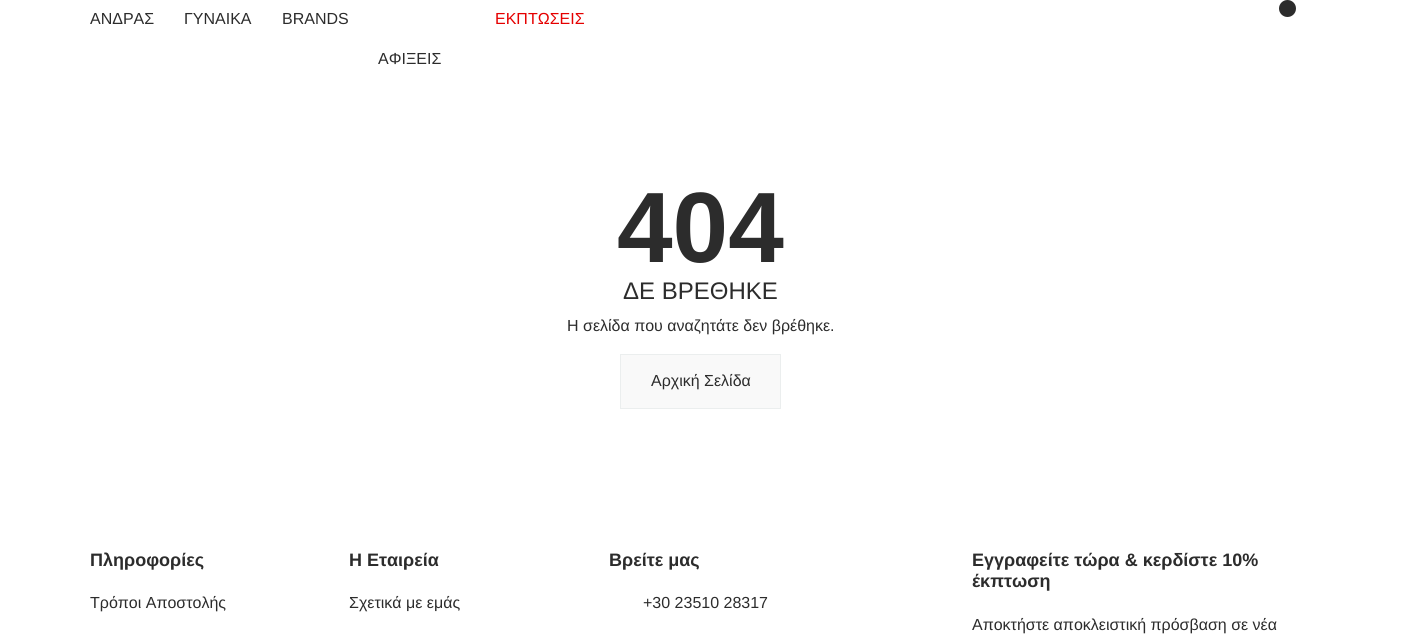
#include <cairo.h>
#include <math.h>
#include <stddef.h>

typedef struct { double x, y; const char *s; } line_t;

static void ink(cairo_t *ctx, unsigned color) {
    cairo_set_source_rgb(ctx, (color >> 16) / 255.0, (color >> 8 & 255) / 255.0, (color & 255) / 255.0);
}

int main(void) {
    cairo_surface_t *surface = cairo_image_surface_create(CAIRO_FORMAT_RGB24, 1401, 637);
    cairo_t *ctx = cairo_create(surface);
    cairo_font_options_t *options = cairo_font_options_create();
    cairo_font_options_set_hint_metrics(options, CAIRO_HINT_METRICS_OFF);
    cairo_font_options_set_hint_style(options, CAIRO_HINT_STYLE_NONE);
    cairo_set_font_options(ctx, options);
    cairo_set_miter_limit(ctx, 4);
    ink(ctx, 0xFFFFFF);
    cairo_paint(ctx);
    ink(ctx, 0x2C2C2C);
    cairo_arc(ctx, 1287.5, 8.5, 8.5, 0, 2 * M_PI);
    cairo_fill(ctx);
    cairo_select_font_face(ctx, "Liberation Sans", CAIRO_FONT_SLANT_NORMAL, CAIRO_FONT_WEIGHT_NORMAL);
    cairo_set_font_size(ctx, 16);
    {
        static const line_t items[] = {
            {90, 24, "ΑΝΔΡΑΣ"},
            {184, 24, "ΓΥΝΑΙΚΑ"},
            {282, 24, "BRANDS"},
        };
        for (size_t i = 0; i < sizeof items / sizeof *items; i++) {
            cairo_move_to(ctx, items[i].x, items[i].y);
            cairo_show_text(ctx, items[i].s);
        }
    }
    ink(ctx, 0xE50000);
    cairo_move_to(ctx, 495, 24);
    cairo_show_text(ctx, "ΕΚΠΤΩΣΕΙΣ");
    ink(ctx, 0x2C2C2C);
    cairo_move_to(ctx, 378, 64);
    cairo_show_text(ctx, "ΑΦΙΞΕΙΣ");
    cairo_select_font_face(ctx, "Liberation Sans", CAIRO_FONT_SLANT_NORMAL, CAIRO_FONT_WEIGHT_BOLD);
    cairo_set_font_size(ctx, 100);
    cairo_move_to(ctx, 617, 262);
    cairo_show_text(ctx, "404");
    cairo_select_font_face(ctx, "Liberation Sans", CAIRO_FONT_SLANT_NORMAL, CAIRO_FONT_WEIGHT_NORMAL);
    cairo_set_font_size(ctx, 24);
    cairo_move_to(ctx, 623, 299);
    cairo_show_text(ctx, "ΔΕ ΒΡΕΘΗΚΕ");
    cairo_set_font_size(ctx, 16);
    cairo_move_to(ctx, 567, 331);
    cairo_show_text(ctx, "Η σελίδα που αναζητάτε δεν βρέθηκε.");
    ink(ctx, 0xF9F9F9);
    cairo_rectangle(ctx, 620.5, 354.5, 160, 54);
    cairo_fill_preserve(ctx);
    ink(ctx, 0xEBEEEE);
    cairo_set_line_width(ctx, 1);
    cairo_stroke(ctx);
    ink(ctx, 0x2C2C2C);
    cairo_move_to(ctx, 651, 386);
    cairo_show_text(ctx, "Αρχική Σελίδα");
    cairo_select_font_face(ctx, "Liberation Sans", CAIRO_FONT_SLANT_NORMAL, CAIRO_FONT_WEIGHT_BOLD);
    cairo_set_font_size(ctx, 18);
    cairo_move_to(ctx, 90, 566);
    cairo_show_text(ctx, "Πληροφορίες");
    cairo_select_font_face(ctx, "Liberation Sans", CAIRO_FONT_SLANT_NORMAL, CAIRO_FONT_WEIGHT_NORMAL);
    cairo_set_font_size(ctx, 16);
    cairo_move_to(ctx, 90, 608);
    cairo_show_text(ctx, "Τρόποι Αποστολής");
    cairo_select_font_face(ctx, "Liberation Sans", CAIRO_FONT_SLANT_NORMAL, CAIRO_FONT_WEIGHT_BOLD);
    cairo_set_font_size(ctx, 18);
    cairo_move_to(ctx, 349, 566);
    cairo_show_text(ctx, "Η Εταιρεία");
    cairo_select_font_face(ctx, "Liberation Sans", CAIRO_FONT_SLANT_NORMAL, CAIRO_FONT_WEIGHT_NORMAL);
    cairo_set_font_size(ctx, 16);
    cairo_move_to(ctx, 349, 608);
    cairo_show_text(ctx, "Σχετικά με εμάς");
    cairo_select_font_face(ctx, "Liberation Sans", CAIRO_FONT_SLANT_NORMAL, CAIRO_FONT_WEIGHT_BOLD);
    cairo_set_font_size(ctx, 18);
    cairo_move_to(ctx, 609, 566);
    cairo_show_text(ctx, "Βρείτε μας");
    cairo_select_font_face(ctx, "Liberation Sans", CAIRO_FONT_SLANT_NORMAL, CAIRO_FONT_WEIGHT_NORMAL);
    cairo_set_font_size(ctx, 16);
    cairo_move_to(ctx, 643, 608);
    cairo_show_text(ctx, "+30 23510 28317");
    cairo_select_font_face(ctx, "Liberation Sans", CAIRO_FONT_SLANT_NORMAL, CAIRO_FONT_WEIGHT_BOLD);
    cairo_set_font_size(ctx, 18);
    cairo_move_to(ctx, 972, 566);
    cairo_show_text(ctx, "Εγγραφείτε τώρα & κερδίστε 10%");
    cairo_move_to(ctx, 972, 587);
    cairo_show_text(ctx, "έκπτωση");
    cairo_select_font_face(ctx, "Liberation Sans", CAIRO_FONT_SLANT_NORMAL, CAIRO_FONT_WEIGHT_NORMAL);
    cairo_set_font_size(ctx, 16);
    cairo_move_to(ctx, 972, 630);
    cairo_show_text(ctx, "Αποκτήστε αποκλειστική πρόσβαση σε νέα");
    cairo_surface_write_to_png(surface, "image.png");
    cairo_font_options_destroy(options);
    cairo_destroy(ctx);
    cairo_surface_destroy(surface);
    return 0;
}
